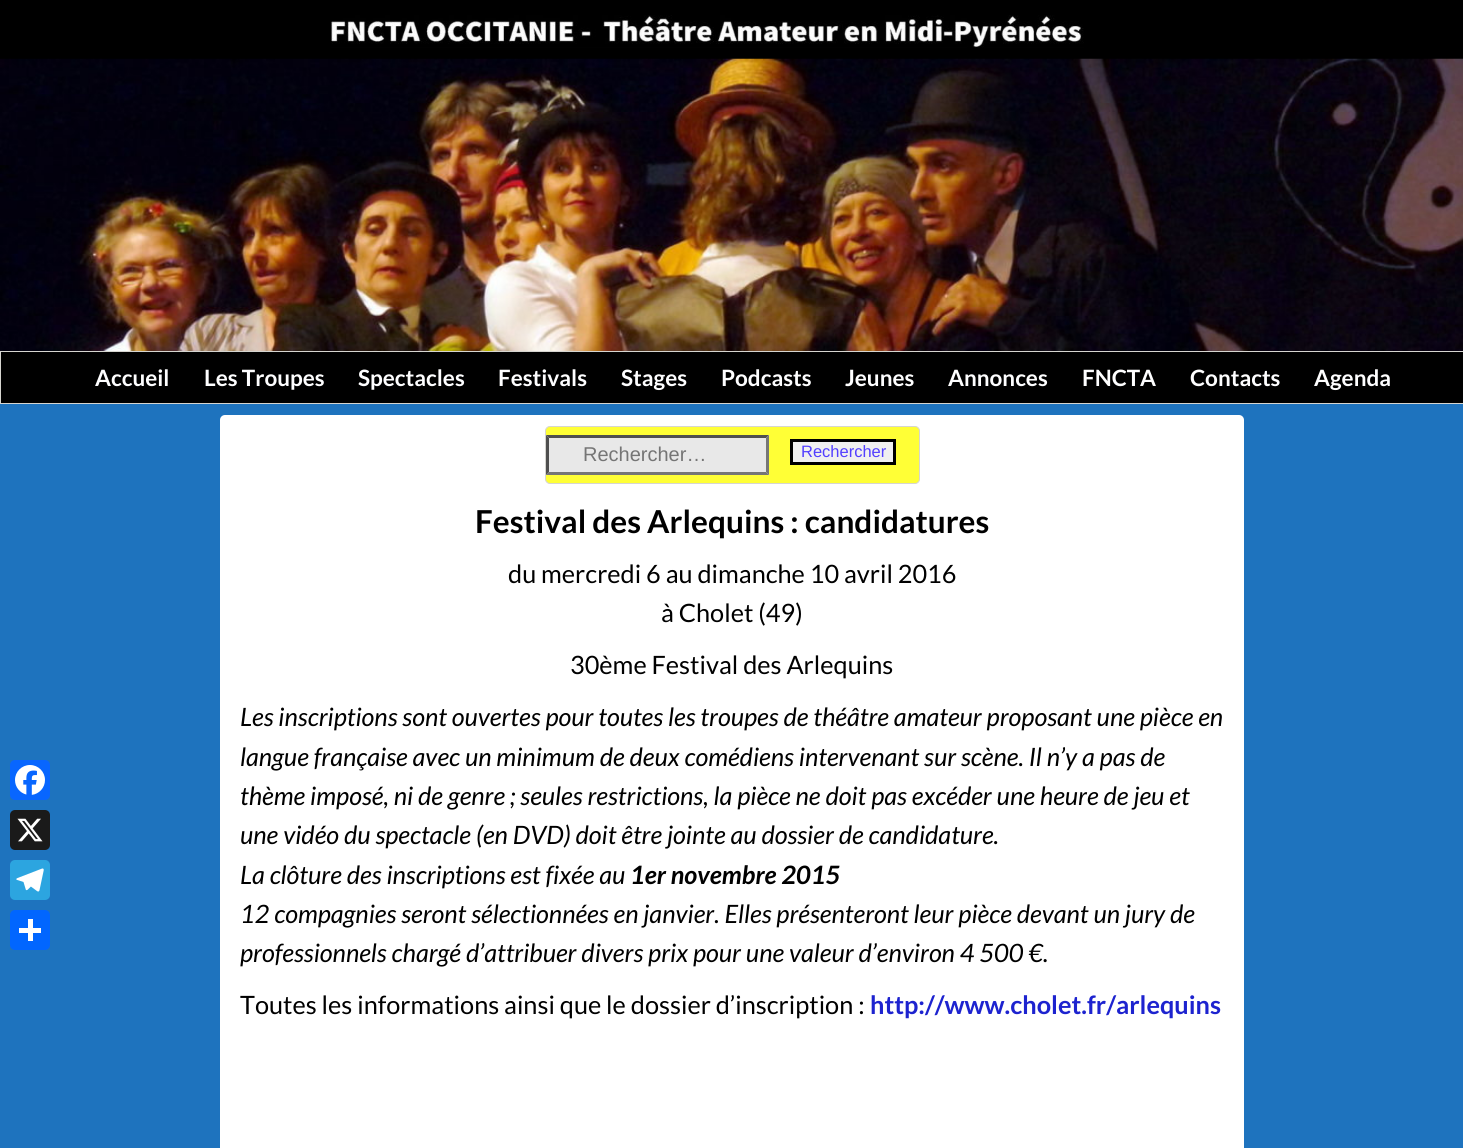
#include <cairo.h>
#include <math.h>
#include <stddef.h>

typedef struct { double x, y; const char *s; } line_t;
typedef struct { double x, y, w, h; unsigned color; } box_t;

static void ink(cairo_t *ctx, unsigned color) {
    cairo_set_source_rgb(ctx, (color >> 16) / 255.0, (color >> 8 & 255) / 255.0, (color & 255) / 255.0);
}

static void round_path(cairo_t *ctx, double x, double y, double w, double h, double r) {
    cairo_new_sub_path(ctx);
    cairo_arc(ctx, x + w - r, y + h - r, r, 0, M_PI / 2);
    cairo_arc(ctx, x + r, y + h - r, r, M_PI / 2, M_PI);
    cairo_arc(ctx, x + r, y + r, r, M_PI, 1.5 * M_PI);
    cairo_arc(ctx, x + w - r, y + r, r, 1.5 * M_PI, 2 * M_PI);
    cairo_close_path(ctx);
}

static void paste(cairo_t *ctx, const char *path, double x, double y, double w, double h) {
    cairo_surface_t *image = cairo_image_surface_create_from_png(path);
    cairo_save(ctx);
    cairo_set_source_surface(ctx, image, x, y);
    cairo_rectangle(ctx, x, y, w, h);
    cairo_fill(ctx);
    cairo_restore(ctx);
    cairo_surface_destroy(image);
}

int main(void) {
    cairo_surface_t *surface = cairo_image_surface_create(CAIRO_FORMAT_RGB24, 1463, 1148);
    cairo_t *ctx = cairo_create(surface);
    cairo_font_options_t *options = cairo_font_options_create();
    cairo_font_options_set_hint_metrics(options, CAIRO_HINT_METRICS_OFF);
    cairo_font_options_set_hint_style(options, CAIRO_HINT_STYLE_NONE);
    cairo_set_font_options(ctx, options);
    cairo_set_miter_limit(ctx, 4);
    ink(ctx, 0x1E73BE);
    cairo_paint(ctx);
    ink(ctx, 0x0866FF);
    round_path(ctx, 10, 760, 40, 40, 5);
    cairo_fill(ctx);
    paste(ctx, "media/1.png", 15, 765, 30, 30);
    ink(ctx, 0x1A1A1A);
    round_path(ctx, 10, 810, 40, 40, 5);
    cairo_fill(ctx);
    paste(ctx, "media/2.png", 17, 818, 26, 24);
    ink(ctx, 0x2CA5E0);
    round_path(ctx, 10, 860, 40, 40, 5);
    cairo_fill(ctx);
    paste(ctx, "media/3.png", 16, 868, 28, 24);
    ink(ctx, 0x0166FF);
    round_path(ctx, 10, 910, 40, 40, 5);
    cairo_fill(ctx);
    {
        static const box_t items[] = {
            {28, 919, 5, 22, 0xFFFFFF},
            {19, 928, 22, 5, 0xFFFFFF},
            {0, 0, 1463, 59, 0x000000},
        };
        for (size_t i = 0; i < sizeof items / sizeof *items; i++) {
            ink(ctx, items[i].color);
            cairo_rectangle(ctx, items[i].x, items[i].y, items[i].w, items[i].h);
            cairo_fill(ctx);
        }
    }
    paste(ctx, "media/4.png", 331, 15, 753, 33);
    paste(ctx, "media/5.png", 0, 58, 1463, 293);
    cairo_rectangle(ctx, 0.5, 351.5, 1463, 52);
    cairo_fill_preserve(ctx);
    ink(ctx, 0xD6D5D0);
    cairo_set_line_width(ctx, 1);
    cairo_stroke(ctx);
    cairo_select_font_face(ctx, "Lato", CAIRO_FONT_SLANT_NORMAL, CAIRO_FONT_WEIGHT_BOLD);
    cairo_set_font_size(ctx, 22.5);
    ink(ctx, 0xFEFEFF);
    {
        static const line_t items[] = {
            {95, 386, "Accueil"},
            {204, 386, "Les Troupes"},
            {358, 386, "Spectacles"},
            {498, 386, "Festivals"},
            {621, 386, "Stages"},
            {721, 386, "Podcasts"},
            {845, 386, "Jeunes"},
            {948, 386, "Annonces"},
            {1082, 386, "FNCTA"},
            {1190, 386, "Contacts"},
            {1314, 386, "Agenda"},
        };
        for (size_t i = 0; i < sizeof items / sizeof *items; i++) {
            cairo_move_to(ctx, items[i].x, items[i].y);
            cairo_show_text(ctx, items[i].s);
        }
    }
    ink(ctx, 0xFFFFFF);
    round_path(ctx, 220, 415, 1024, 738, 5);
    cairo_fill(ctx);
    ink(ctx, 0xFFFF36);
    round_path(ctx, 545.5, 426.5, 374, 57, 4.5);
    cairo_fill_preserve(ctx);
    ink(ctx, 0xD6D5D0);
    cairo_stroke(ctx);
    ink(ctx, 0xE8E8E8);
    cairo_rectangle(ctx, 546, 435, 223, 40);
    cairo_fill(ctx);
    ink(ctx, 0x4F4F4F);
    cairo_new_path(ctx);
    cairo_move_to(ctx, 546, 435);
    cairo_line_to(ctx, 769, 435);
    cairo_line_to(ctx, 766, 438);
    cairo_line_to(ctx, 549, 438);
    cairo_close_path(ctx);
    cairo_fill(ctx);
    ink(ctx, 0x767676);
    cairo_new_path(ctx);
    cairo_move_to(ctx, 769, 435);
    cairo_line_to(ctx, 769, 475);
    cairo_line_to(ctx, 766, 472);
    cairo_line_to(ctx, 766, 438);
    cairo_close_path(ctx);
    cairo_fill(ctx);
    cairo_new_path(ctx);
    cairo_move_to(ctx, 769, 475);
    cairo_line_to(ctx, 546, 475);
    cairo_line_to(ctx, 549, 472);
    cairo_line_to(ctx, 766, 472);
    cairo_close_path(ctx);
    cairo_fill(ctx);
    ink(ctx, 0x4F4F4F);
    cairo_new_path(ctx);
    cairo_move_to(ctx, 546, 475);
    cairo_line_to(ctx, 546, 435);
    cairo_line_to(ctx, 549, 438);
    cairo_line_to(ctx, 549, 472);
    cairo_close_path(ctx);
    cairo_fill(ctx);
    cairo_select_font_face(ctx, "Liberation Sans", CAIRO_FONT_SLANT_NORMAL, CAIRO_FONT_WEIGHT_NORMAL);
    cairo_set_font_size(ctx, 20);
    ink(ctx, 0x757575);
    cairo_move_to(ctx, 583, 461);
    cairo_show_text(ctx, "Rechercher…");
    ink(ctx, 0xF0F0F0);
    cairo_rectangle(ctx, 791.5, 440.5, 103, 23);
    cairo_fill_preserve(ctx);
    ink(ctx, 0x000000);
    cairo_set_line_width(ctx, 3);
    cairo_stroke(ctx);
    cairo_set_font_size(ctx, 16.5);
    ink(ctx, 0x5340FF);
    cairo_move_to(ctx, 801, 457);
    cairo_show_text(ctx, "Rechercher");
    cairo_select_font_face(ctx, "Lato", CAIRO_FONT_SLANT_NORMAL, CAIRO_FONT_WEIGHT_BOLD);
    cairo_set_font_size(ctx, 31.6);
    ink(ctx, 0x000000);
    cairo_move_to(ctx, 475, 533);
    cairo_show_text(ctx, "Festival des Arlequins : candidatures");
    cairo_select_font_face(ctx, "Lato", CAIRO_FONT_SLANT_NORMAL, CAIRO_FONT_WEIGHT_NORMAL);
    cairo_set_font_size(ctx, 25.3);
    {
        static const line_t items[] = {
            {508, 583, "du mercredi 6 au dimanche 10 avril 2016"},
            {661, 622, "à Cholet (49)"},
            {570, 674, "30ème Festival des Arlequins"},
        };
        for (size_t i = 0; i < sizeof items / sizeof *items; i++) {
            cairo_move_to(ctx, items[i].x, items[i].y);
            cairo_show_text(ctx, items[i].s);
        }
    }
    cairo_select_font_face(ctx, "Lato", CAIRO_FONT_SLANT_ITALIC, CAIRO_FONT_WEIGHT_NORMAL);
    {
        static const line_t items[] = {
            {240, 726, "Les inscriptions sont ouvertes pour toutes les troupes de théâtre amateur proposant une pièce en"},
            {240, 766, "langue française avec un minimum de deux comédiens intervenant sur scène. Il n’y a pas de"},
            {240, 805, "thème imposé, ni de genre ; seules restrictions, la pièce ne doit pas excéder une heure de jeu et"},
            {240, 844, "une vidéo du spectacle (en DVD) doit être jointe au dossier de candidature."},
            {240, 884, "La clôture des inscriptions est fixée au"},
        };
        for (size_t i = 0; i < sizeof items / sizeof *items; i++) {
            cairo_move_to(ctx, items[i].x, items[i].y);
            cairo_show_text(ctx, items[i].s);
        }
    }
    cairo_select_font_face(ctx, "Lato", CAIRO_FONT_SLANT_ITALIC, CAIRO_FONT_WEIGHT_BOLD);
    cairo_move_to(ctx, 630, 884);
    cairo_show_text(ctx, "1er novembre 2015");
    cairo_select_font_face(ctx, "Lato", CAIRO_FONT_SLANT_ITALIC, CAIRO_FONT_WEIGHT_NORMAL);
    cairo_move_to(ctx, 240, 923);
    cairo_show_text(ctx, "12 compagnies seront sélectionnées en janvier. Elles présenteront leur pièce devant un jury de");
    cairo_move_to(ctx, 240, 962);
    cairo_show_text(ctx, "professionnels chargé d’attribuer divers prix pour une valeur d’environ 4 500 €.");
    cairo_select_font_face(ctx, "Lato", CAIRO_FONT_SLANT_NORMAL, CAIRO_FONT_WEIGHT_NORMAL);
    cairo_move_to(ctx, 240, 1014);
    cairo_show_text(ctx, "Toutes les informations ainsi que le dossier d’inscription :");
    cairo_select_font_face(ctx, "Lato", CAIRO_FONT_SLANT_NORMAL, CAIRO_FONT_WEIGHT_BOLD);
    ink(ctx, 0x1D23CF);
    cairo_move_to(ctx, 870, 1014);
    cairo_show_text(ctx, "http://www.cholet.fr/arlequins");
    cairo_surface_write_to_png(surface, "image.png");
    cairo_font_options_destroy(options);
    cairo_destroy(ctx);
    cairo_surface_destroy(surface);
    return 0;
}
